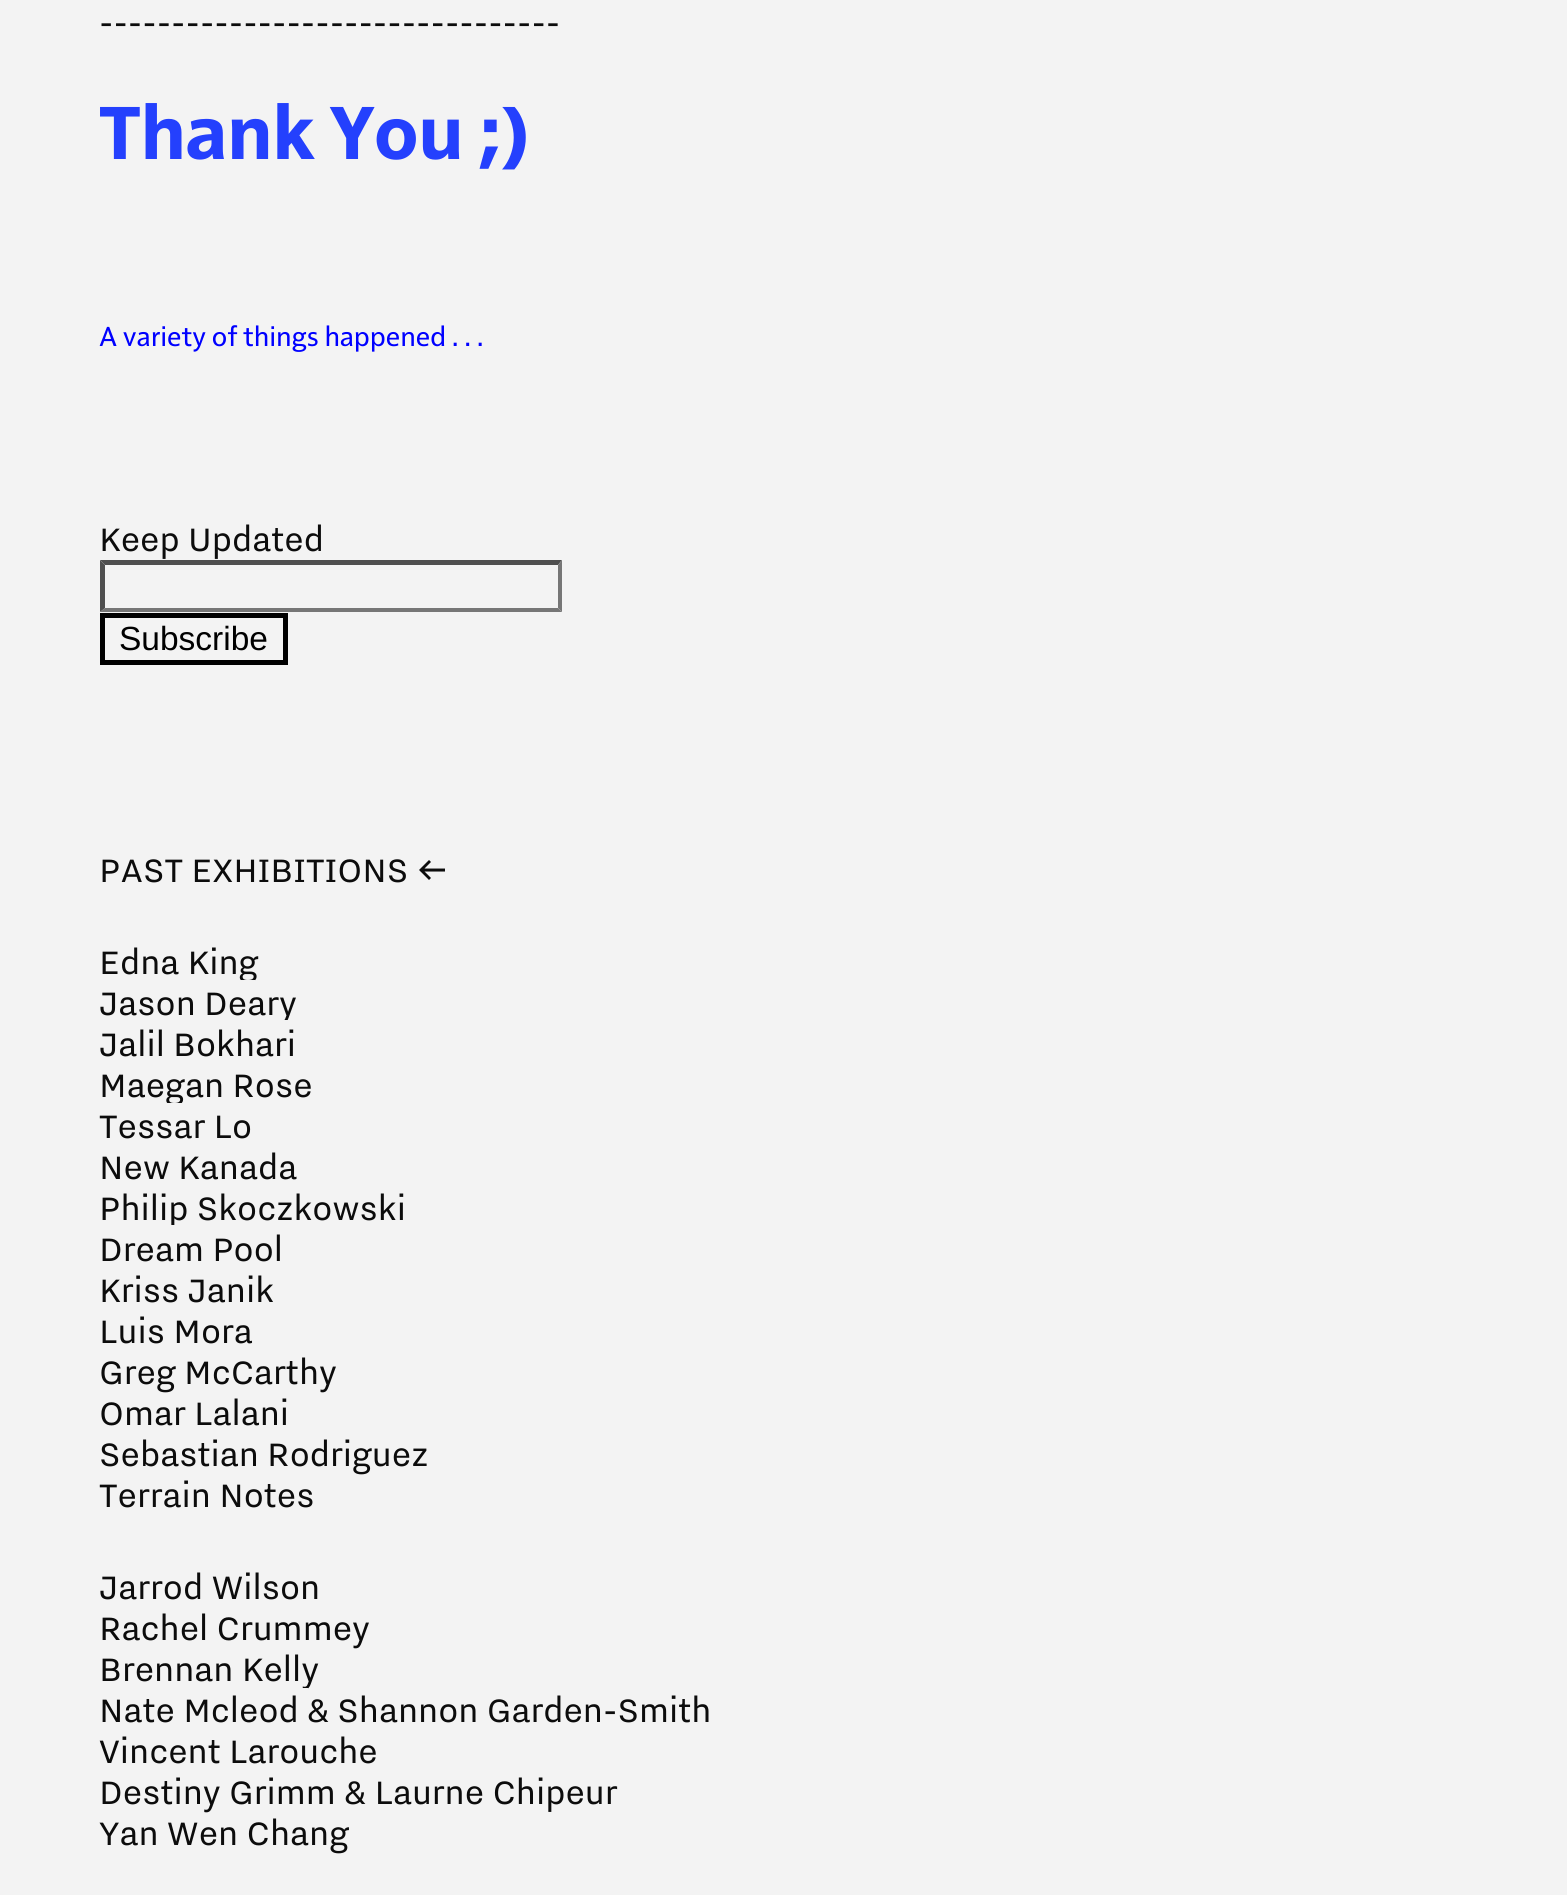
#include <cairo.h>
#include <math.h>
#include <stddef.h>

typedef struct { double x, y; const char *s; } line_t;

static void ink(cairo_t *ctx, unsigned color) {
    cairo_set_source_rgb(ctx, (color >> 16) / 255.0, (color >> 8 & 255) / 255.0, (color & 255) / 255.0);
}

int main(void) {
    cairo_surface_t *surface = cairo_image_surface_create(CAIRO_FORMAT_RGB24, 1567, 1895);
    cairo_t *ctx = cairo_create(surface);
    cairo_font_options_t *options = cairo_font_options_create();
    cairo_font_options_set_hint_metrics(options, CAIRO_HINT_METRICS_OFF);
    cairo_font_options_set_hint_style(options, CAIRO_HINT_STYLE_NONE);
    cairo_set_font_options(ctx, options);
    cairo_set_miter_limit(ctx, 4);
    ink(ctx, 0xF3F3F3);
    cairo_paint(ctx);
    cairo_select_font_face(ctx, "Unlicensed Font", CAIRO_FONT_SLANT_NORMAL, CAIRO_FONT_WEIGHT_NORMAL);
    cairo_set_font_size(ctx, 41);
    ink(ctx, 0x0C0C0C);
    cairo_move_to(ctx, 99, 34);
    cairo_show_text(ctx, "--------------------------------");
    cairo_select_font_face(ctx, "Unlicensed Font", CAIRO_FONT_SLANT_NORMAL, CAIRO_FONT_WEIGHT_BOLD);
    cairo_set_font_size(ctx, 76.75);
    ink(ctx, 0x2440FD);
    cairo_move_to(ctx, 99, 159);
    cairo_show_text(ctx, "Thank You ;)");
    cairo_select_font_face(ctx, "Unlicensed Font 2", CAIRO_FONT_SLANT_NORMAL, CAIRO_FONT_WEIGHT_NORMAL);
    cairo_set_font_size(ctx, 28.2);
    ink(ctx, 0x0000FF);
    cairo_move_to(ctx, 99, 346);
    cairo_show_text(ctx, "A variety of things happened . . .");
    cairo_select_font_face(ctx, "Unlicensed Font", CAIRO_FONT_SLANT_NORMAL, CAIRO_FONT_WEIGHT_NORMAL);
    cairo_set_font_size(ctx, 41);
    ink(ctx, 0x0C0C0C);
    cairo_move_to(ctx, 99, 551);
    cairo_show_text(ctx, "Keep Updated");
    ink(ctx, 0x4F4F4F);
    cairo_new_path(ctx);
    cairo_move_to(ctx, 100, 560);
    cairo_line_to(ctx, 562, 560);
    cairo_line_to(ctx, 558, 565);
    cairo_line_to(ctx, 105, 565);
    cairo_close_path(ctx);
    cairo_fill(ctx);
    ink(ctx, 0x767676);
    cairo_new_path(ctx);
    cairo_move_to(ctx, 562, 560);
    cairo_line_to(ctx, 562, 612);
    cairo_line_to(ctx, 558, 608);
    cairo_line_to(ctx, 558, 565);
    cairo_close_path(ctx);
    cairo_fill(ctx);
    cairo_new_path(ctx);
    cairo_move_to(ctx, 562, 612);
    cairo_line_to(ctx, 100, 612);
    cairo_line_to(ctx, 105, 608);
    cairo_line_to(ctx, 558, 608);
    cairo_close_path(ctx);
    cairo_fill(ctx);
    ink(ctx, 0x4F4F4F);
    cairo_new_path(ctx);
    cairo_move_to(ctx, 100, 612);
    cairo_line_to(ctx, 100, 560);
    cairo_line_to(ctx, 105, 565);
    cairo_line_to(ctx, 105, 608);
    cairo_close_path(ctx);
    cairo_fill(ctx);
    cairo_rectangle(ctx, 102.5, 615.5, 183, 47);
    ink(ctx, 0x000000);
    cairo_set_line_width(ctx, 5);
    cairo_stroke(ctx);
    cairo_select_font_face(ctx, "Liberation Sans", CAIRO_FONT_SLANT_NORMAL, CAIRO_FONT_WEIGHT_NORMAL);
    cairo_set_font_size(ctx, 33.5);
    cairo_move_to(ctx, 119, 650);
    cairo_show_text(ctx, "Subscribe");
    cairo_select_font_face(ctx, "Unlicensed Font", CAIRO_FONT_SLANT_NORMAL, CAIRO_FONT_WEIGHT_NORMAL);
    cairo_set_font_size(ctx, 41);
    ink(ctx, 0x0C0C0C);
    cairo_move_to(ctx, 99, 882);
    cairo_show_text(ctx, "PAST EXHIBITIONS");
    cairo_new_path(ctx);
    cairo_move_to(ctx, 429, 860);
    cairo_line_to(ctx, 431, 862);
    cairo_line_to(ctx, 424.5, 868.5);
    cairo_line_to(ctx, 445, 868.5);
    cairo_line_to(ctx, 445, 871.5);
    cairo_line_to(ctx, 424.5, 871.5);
    cairo_line_to(ctx, 431, 878);
    cairo_line_to(ctx, 429, 880);
    cairo_line_to(ctx, 419, 870);
    cairo_close_path(ctx);
    cairo_fill(ctx);
    cairo_move_to(ctx, 99, 974);
    cairo_show_text(ctx, "Edna King");
    cairo_move_to(ctx, 99, 1015);
    cairo_show_text(ctx, "Jason Deary");
    ink(ctx, 0xF3F3F3);
    cairo_rectangle(ctx, 240, 980, 15, 3);
    cairo_fill(ctx);
    ink(ctx, 0x0C0C0C);
    cairo_move_to(ctx, 99, 1056);
    cairo_show_text(ctx, "Jalil Bokhari");
    ink(ctx, 0xF3F3F3);
    cairo_rectangle(ctx, 280, 1020, 8, 4);
    cairo_fill(ctx);
    ink(ctx, 0x0C0C0C);
    cairo_move_to(ctx, 99, 1097);
    cairo_show_text(ctx, "Maegan Rose");
    cairo_move_to(ctx, 99, 1138);
    cairo_show_text(ctx, "Tessar Lo");
    ink(ctx, 0xF3F3F3);
    cairo_rectangle(ctx, 167, 1103, 15, 3);
    cairo_fill(ctx);
    ink(ctx, 0x0C0C0C);
    {
        static const line_t items[] = {
            {99, 1179, "New Kanada"},
            {99, 1220, "Philip Skoczkowski"},
            {99, 1261, "Dream Pool"},
        };
        for (size_t i = 0; i < sizeof items / sizeof *items; i++) {
            cairo_move_to(ctx, items[i].x, items[i].y);
            cairo_show_text(ctx, items[i].s);
        }
    }
    ink(ctx, 0xF3F3F3);
    cairo_rectangle(ctx, 171, 1225, 4, 3);
    cairo_fill(ctx);
    ink(ctx, 0x0C0C0C);
    {
        static const line_t items[] = {
            {99, 1302, "Kriss Janik"},
            {99, 1343, "Luis Mora"},
            {99, 1384, "Greg McCarthy"},
            {99, 1425, "Omar Lalani"},
            {99, 1466, "Sebastian Rodriguez"},
            {99, 1507, "Terrain Notes"},
            {99, 1599, "Jarrod Wilson"},
            {99, 1640, "Rachel Crummey"},
            {99, 1681, "Brennan Kelly"},
            {99, 1722, "Nate Mcleod & Shannon Garden-Smith"},
        };
        for (size_t i = 0; i < sizeof items / sizeof *items; i++) {
            cairo_move_to(ctx, items[i].x, items[i].y);
            cairo_show_text(ctx, items[i].s);
        }
    }
    ink(ctx, 0xF3F3F3);
    cairo_rectangle(ctx, 302, 1688, 6, 2);
    cairo_fill(ctx);
    ink(ctx, 0x0C0C0C);
    {
        static const line_t items[] = {
            {99, 1763, "Vincent Larouche"},
            {99, 1804, "Destiny Grimm & Laurne Chipeur"},
            {99, 1845, "Yan Wen Chang"},
        };
        for (size_t i = 0; i < sizeof items / sizeof *items; i++) {
            cairo_move_to(ctx, items[i].x, items[i].y);
            cairo_show_text(ctx, items[i].s);
        }
    }
    cairo_surface_write_to_png(surface, "image.png");
    cairo_font_options_destroy(options);
    cairo_destroy(ctx);
    cairo_surface_destroy(surface);
    return 0;
}
